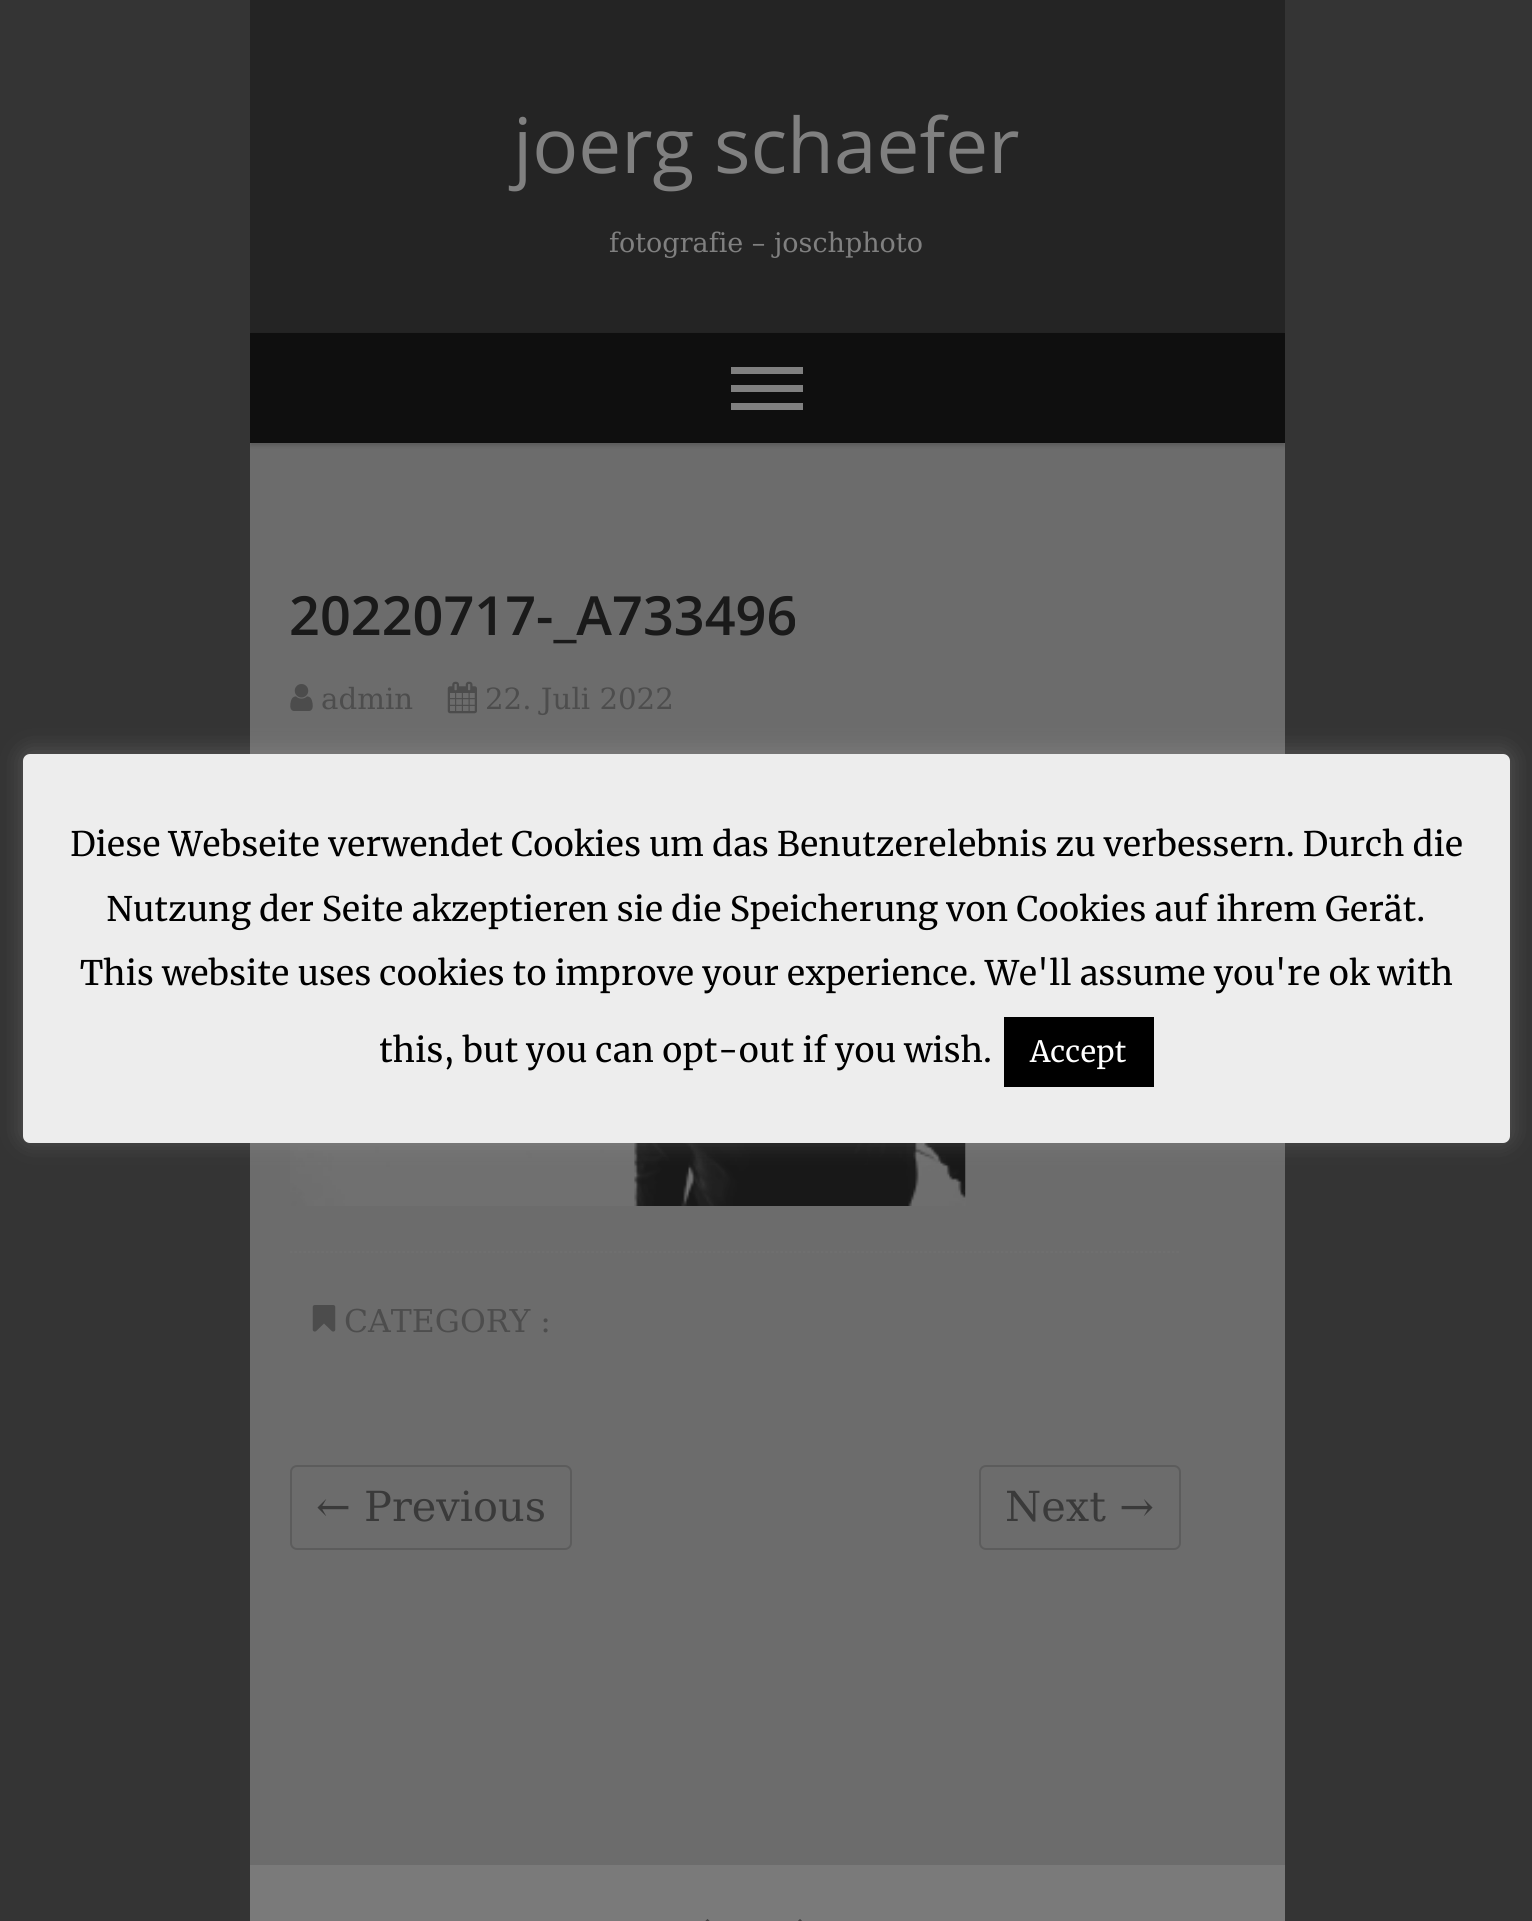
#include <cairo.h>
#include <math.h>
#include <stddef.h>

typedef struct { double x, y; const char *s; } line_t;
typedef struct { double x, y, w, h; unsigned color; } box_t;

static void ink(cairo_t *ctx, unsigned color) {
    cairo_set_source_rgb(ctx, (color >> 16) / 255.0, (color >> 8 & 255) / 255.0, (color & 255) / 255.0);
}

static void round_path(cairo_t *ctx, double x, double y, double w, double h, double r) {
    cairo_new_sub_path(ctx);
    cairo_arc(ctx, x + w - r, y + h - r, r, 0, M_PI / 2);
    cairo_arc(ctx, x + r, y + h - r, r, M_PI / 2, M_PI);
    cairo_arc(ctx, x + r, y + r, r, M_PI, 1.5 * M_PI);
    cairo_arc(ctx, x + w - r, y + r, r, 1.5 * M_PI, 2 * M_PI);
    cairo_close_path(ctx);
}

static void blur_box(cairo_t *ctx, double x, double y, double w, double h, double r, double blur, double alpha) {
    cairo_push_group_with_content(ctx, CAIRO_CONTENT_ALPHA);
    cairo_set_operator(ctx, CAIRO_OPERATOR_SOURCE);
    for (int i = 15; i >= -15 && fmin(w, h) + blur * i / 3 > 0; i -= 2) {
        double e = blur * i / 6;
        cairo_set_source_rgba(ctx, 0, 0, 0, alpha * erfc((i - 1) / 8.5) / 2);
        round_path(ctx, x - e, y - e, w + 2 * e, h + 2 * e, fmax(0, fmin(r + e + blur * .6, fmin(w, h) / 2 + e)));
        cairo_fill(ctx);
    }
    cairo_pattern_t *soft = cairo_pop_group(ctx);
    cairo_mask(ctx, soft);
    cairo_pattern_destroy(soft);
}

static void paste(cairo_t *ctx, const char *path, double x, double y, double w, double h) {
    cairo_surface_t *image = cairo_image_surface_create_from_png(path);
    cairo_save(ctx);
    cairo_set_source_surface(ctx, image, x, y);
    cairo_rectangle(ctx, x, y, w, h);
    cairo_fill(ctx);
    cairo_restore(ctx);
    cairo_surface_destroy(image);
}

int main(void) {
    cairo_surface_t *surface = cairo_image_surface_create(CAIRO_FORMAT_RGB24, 1532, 1921);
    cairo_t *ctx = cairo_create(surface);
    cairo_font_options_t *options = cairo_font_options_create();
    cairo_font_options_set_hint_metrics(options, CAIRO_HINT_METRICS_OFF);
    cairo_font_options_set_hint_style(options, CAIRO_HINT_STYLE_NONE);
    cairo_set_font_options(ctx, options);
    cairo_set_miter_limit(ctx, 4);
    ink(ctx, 0x343434);
    cairo_paint(ctx);
    ink(ctx, 0x242424);
    cairo_rectangle(ctx, 250, 0, 1035, 333);
    cairo_fill(ctx);
    cairo_select_font_face(ctx, "Open Sans", CAIRO_FONT_SLANT_NORMAL, CAIRO_FONT_WEIGHT_NORMAL);
    cairo_set_font_size(ctx, 76.5);
    ink(ctx, 0x808080);
    cairo_move_to(ctx, 513, 173);
    cairo_show_text(ctx, "joerg schaefer");
    cairo_select_font_face(ctx, "DejaVu Serif", CAIRO_FONT_SLANT_NORMAL, CAIRO_FONT_WEIGHT_NORMAL);
    cairo_set_font_size(ctx, 27);
    cairo_move_to(ctx, 609, 252);
    cairo_show_text(ctx, "fotografie – joschphoto");
    ink(ctx, 0x6C6C6C);
    cairo_rectangle(ctx, 250, 443, 1035, 1422);
    cairo_fill(ctx);
    cairo_save(ctx);
    cairo_rectangle(ctx, 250, 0, 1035, 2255);
    cairo_clip(ctx);
    ink(ctx, 0x000000);
    blur_box(ctx, 250, 335, 1035, 111, 0, 2, 0.15);
    cairo_restore(ctx);
    {
        static const box_t items[] = {
            {250, 333, 1035, 110, 0x0F0F0F},
            {731, 367, 72, 7, 0x808080},
            {731, 385, 72, 7, 0x808080},
            {731, 403, 72, 7, 0x808080},
        };
        for (size_t i = 0; i < sizeof items / sizeof *items; i++) {
            ink(ctx, items[i].color);
            cairo_rectangle(ctx, items[i].x, items[i].y, items[i].w, items[i].h);
            cairo_fill(ctx);
        }
    }
    cairo_select_font_face(ctx, "Open Sans SemiBold", CAIRO_FONT_SLANT_NORMAL, CAIRO_FONT_WEIGHT_NORMAL);
    cairo_set_font_size(ctx, 54);
    ink(ctx, 0x1A1A1A);
    cairo_move_to(ctx, 289, 635);
    cairo_show_text(ctx, "20220717-_A733496");
    paste(ctx, "media/1.png", 290, 684, 23, 27);
    cairo_select_font_face(ctx, "DejaVu Serif", CAIRO_FONT_SLANT_NORMAL, CAIRO_FONT_WEIGHT_NORMAL);
    cairo_set_font_size(ctx, 29.25);
    ink(ctx, 0x4D4D4D);
    cairo_move_to(ctx, 321, 709);
    cairo_show_text(ctx, "admin");
    paste(ctx, "media/2.png", 447, 681, 30, 33);
    cairo_move_to(ctx, 485, 709);
    cairo_show_text(ctx, "22. Juli 2022");
    paste(ctx, "media/3.png", 290, 1143, 676, 63);
    cairo_new_path(ctx);
    cairo_move_to(ctx, 290, 1252);
    cairo_line_to(ctx, 1181, 1252);
    ink(ctx, 0x6F6F6F);
    cairo_set_line_width(ctx, 2.2);
    cairo_set_dash(ctx, (double[]){2.25, 2.25}, 2, 0);
    cairo_stroke(ctx);
    paste(ctx, "media/4.png", 312, 1305, 24, 27);
    cairo_set_font_size(ctx, 31.5);
    ink(ctx, 0x4D4D4D);
    cairo_move_to(ctx, 344, 1332);
    cairo_show_text(ctx, "CATEGORY :");
    round_path(ctx, 291, 1466, 280, 83, 6);
    ink(ctx, 0x5C5C5C);
    cairo_set_line_width(ctx, 2);
    cairo_set_dash(ctx, NULL, 0, 0);
    cairo_stroke(ctx);
    cairo_set_font_size(ctx, 41.5);
    ink(ctx, 0x3A3A3A);
    cairo_move_to(ctx, 316, 1521);
    cairo_show_text(ctx, "← Previous");
    round_path(ctx, 980, 1466, 200, 83, 6);
    ink(ctx, 0x5C5C5C);
    cairo_stroke(ctx);
    ink(ctx, 0x3A3A3A);
    cairo_move_to(ctx, 1005, 1521);
    cairo_show_text(ctx, "Next →");
    ink(ctx, 0x7A7A7A);
    cairo_rectangle(ctx, 250, 1865, 1035, 56);
    cairo_fill(ctx);
    cairo_new_path(ctx);
    cairo_move_to(ctx, 661.5, 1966.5);
    cairo_line_to(ctx, 707.5, 1920.5);
    cairo_line_to(ctx, 754, 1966.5);
    cairo_line_to(ctx, 707.5, 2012.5);
    cairo_close_path(ctx);
    ink(ctx, 0x424242);
    cairo_set_line_width(ctx, 2.3);
    cairo_stroke(ctx);
    cairo_new_path(ctx);
    cairo_move_to(ctx, 753.5, 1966.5);
    cairo_line_to(ctx, 800, 1920.5);
    cairo_line_to(ctx, 846, 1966.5);
    cairo_line_to(ctx, 800, 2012.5);
    cairo_close_path(ctx);
    cairo_stroke(ctx);
    ink(ctx, 0xACABAB);
    blur_box(ctx, 23, 752, 1487, 389, 7, 11, 0.3);
    ink(ctx, 0xEDEDED);
    round_path(ctx, 23, 754, 1487, 389, 7);
    cairo_fill(ctx);
    cairo_select_font_face(ctx, "Merriweather", CAIRO_FONT_SLANT_NORMAL, CAIRO_FONT_WEIGHT_NORMAL);
    cairo_set_font_size(ctx, 33.75);
    ink(ctx, 0x000000);
    {
        static const line_t items[] = {
            {70, 856, "Diese Webseite verwendet Cookies um das Benutzerelebnis zu verbessern. Durch die"},
            {106, 921, "Nutzung der Seite akzeptieren sie die Speicherung von Cookies auf ihrem Gerät."},
            {80, 985, "This website uses cookies to improve your experience. We'll assume you're ok with"},
            {379, 1062, "this, but you can opt-out if you wish."},
        };
        for (size_t i = 0; i < sizeof items / sizeof *items; i++) {
            cairo_move_to(ctx, items[i].x, items[i].y);
            cairo_show_text(ctx, items[i].s);
        }
    }
    cairo_rectangle(ctx, 1004, 1017, 150, 70);
    cairo_fill(ctx);
    cairo_set_font_size(ctx, 29.25);
    ink(ctx, 0xFFFFFF);
    cairo_move_to(ctx, 1030, 1062);
    cairo_show_text(ctx, "Accept");
    cairo_surface_write_to_png(surface, "image.png");
    cairo_font_options_destroy(options);
    cairo_destroy(ctx);
    cairo_surface_destroy(surface);
    return 0;
}
